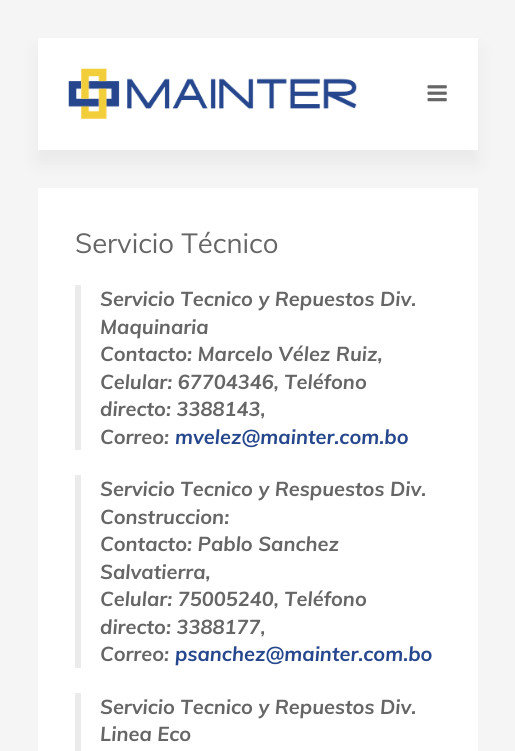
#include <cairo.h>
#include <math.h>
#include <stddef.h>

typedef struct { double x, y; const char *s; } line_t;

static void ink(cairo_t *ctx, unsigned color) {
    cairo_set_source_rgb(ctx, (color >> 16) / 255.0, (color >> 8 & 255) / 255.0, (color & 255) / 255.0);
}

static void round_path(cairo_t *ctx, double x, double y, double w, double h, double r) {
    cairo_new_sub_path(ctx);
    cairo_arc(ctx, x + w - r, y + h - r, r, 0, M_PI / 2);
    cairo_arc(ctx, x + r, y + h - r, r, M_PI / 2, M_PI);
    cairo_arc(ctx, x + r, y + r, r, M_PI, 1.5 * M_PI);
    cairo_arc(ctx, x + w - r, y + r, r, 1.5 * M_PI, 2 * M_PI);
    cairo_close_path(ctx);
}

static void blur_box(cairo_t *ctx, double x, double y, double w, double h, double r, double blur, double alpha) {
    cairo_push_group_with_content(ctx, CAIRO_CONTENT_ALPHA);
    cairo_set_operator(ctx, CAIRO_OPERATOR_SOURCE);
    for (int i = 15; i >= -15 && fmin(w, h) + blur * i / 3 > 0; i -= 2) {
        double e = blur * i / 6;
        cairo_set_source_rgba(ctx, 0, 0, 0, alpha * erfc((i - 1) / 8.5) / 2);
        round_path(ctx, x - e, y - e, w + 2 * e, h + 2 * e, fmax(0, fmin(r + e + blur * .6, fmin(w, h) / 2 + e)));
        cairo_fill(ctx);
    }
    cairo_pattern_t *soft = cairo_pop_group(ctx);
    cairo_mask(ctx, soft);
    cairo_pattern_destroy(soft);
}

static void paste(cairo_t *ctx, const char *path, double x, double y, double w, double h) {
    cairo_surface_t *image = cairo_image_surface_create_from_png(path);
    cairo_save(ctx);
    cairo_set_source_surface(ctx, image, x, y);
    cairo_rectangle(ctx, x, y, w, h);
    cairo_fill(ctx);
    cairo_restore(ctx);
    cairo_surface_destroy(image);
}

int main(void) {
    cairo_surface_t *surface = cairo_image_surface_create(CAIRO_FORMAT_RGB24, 515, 751);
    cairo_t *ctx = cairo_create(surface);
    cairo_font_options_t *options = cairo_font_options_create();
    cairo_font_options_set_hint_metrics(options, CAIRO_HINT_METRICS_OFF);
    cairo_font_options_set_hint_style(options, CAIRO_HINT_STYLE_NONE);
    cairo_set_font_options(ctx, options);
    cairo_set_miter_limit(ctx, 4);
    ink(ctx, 0xF5F5F5);
    cairo_paint(ctx);
    ink(ctx, 0x000000);
    blur_box(ctx, 38, 50, 440, 113, 0, 9.5, 0.05);
    ink(ctx, 0xFFFFFF);
    cairo_rectangle(ctx, 38, 38, 440, 112);
    cairo_fill(ctx);
    paste(ctx, "media/1.png", 68, 68, 289, 51);
    paste(ctx, "media/2.png", 427, 85, 20, 17);
    cairo_rectangle(ctx, 38, 188, 440, 563);
    cairo_fill(ctx);
    cairo_select_font_face(ctx, "Muli", CAIRO_FONT_SLANT_NORMAL, CAIRO_FONT_WEIGHT_NORMAL);
    cairo_set_font_size(ctx, 27.5);
    ink(ctx, 0x666666);
    cairo_move_to(ctx, 75, 253);
    cairo_show_text(ctx, "Servicio Técnico");
    ink(ctx, 0xEBEBEB);
    cairo_rectangle(ctx, 75, 285, 6, 165);
    cairo_fill(ctx);
    cairo_select_font_face(ctx, "Muli", CAIRO_FONT_SLANT_ITALIC, CAIRO_FONT_WEIGHT_BOLD);
    cairo_set_font_size(ctx, 20);
    ink(ctx, 0x666666);
    {
        static const line_t items[] = {
            {100, 306, "Servicio Tecnico y Repuestos Div."},
            {100, 334, "Maquinaria"},
            {100, 361, "Contacto: Marcelo Vélez Ruiz,"},
            {100, 389, "Celular: 67704346, Teléfono"},
            {100, 416, "directo: 3388143,"},
            {100, 444, "Correo:"},
        };
        for (size_t i = 0; i < sizeof items / sizeof *items; i++) {
            cairo_move_to(ctx, items[i].x, items[i].y);
            cairo_show_text(ctx, items[i].s);
        }
    }
    ink(ctx, 0x26478D);
    cairo_move_to(ctx, 175, 444);
    cairo_show_text(ctx, "mvelez@mainter.com.bo");
    ink(ctx, 0xEBEBEB);
    cairo_rectangle(ctx, 75, 475, 6, 193);
    cairo_fill(ctx);
    ink(ctx, 0x666666);
    {
        static const line_t items[] = {
            {100, 496, "Servicio Tecnico y Respuestos Div."},
            {100, 524, "Construccion:"},
            {100, 551, "Contacto: Pablo Sanchez"},
            {100, 579, "Salvatierra,"},
            {100, 606, "Celular: 75005240, Teléfono"},
            {100, 634, "directo: 3388177,"},
            {100, 661, "Correo:"},
        };
        for (size_t i = 0; i < sizeof items / sizeof *items; i++) {
            cairo_move_to(ctx, items[i].x, items[i].y);
            cairo_show_text(ctx, items[i].s);
        }
    }
    ink(ctx, 0x26478D);
    cairo_move_to(ctx, 175, 661);
    cairo_show_text(ctx, "psanchez@mainter.com.bo");
    ink(ctx, 0xEBEBEB);
    cairo_rectangle(ctx, 75, 693, 6, 58);
    cairo_fill(ctx);
    ink(ctx, 0x666666);
    cairo_move_to(ctx, 100, 714);
    cairo_show_text(ctx, "Servicio Tecnico y Repuestos Div.");
    cairo_move_to(ctx, 100, 741);
    cairo_show_text(ctx, "Linea Eco");
    cairo_surface_write_to_png(surface, "image.png");
    cairo_font_options_destroy(options);
    cairo_destroy(ctx);
    cairo_surface_destroy(surface);
    return 0;
}
